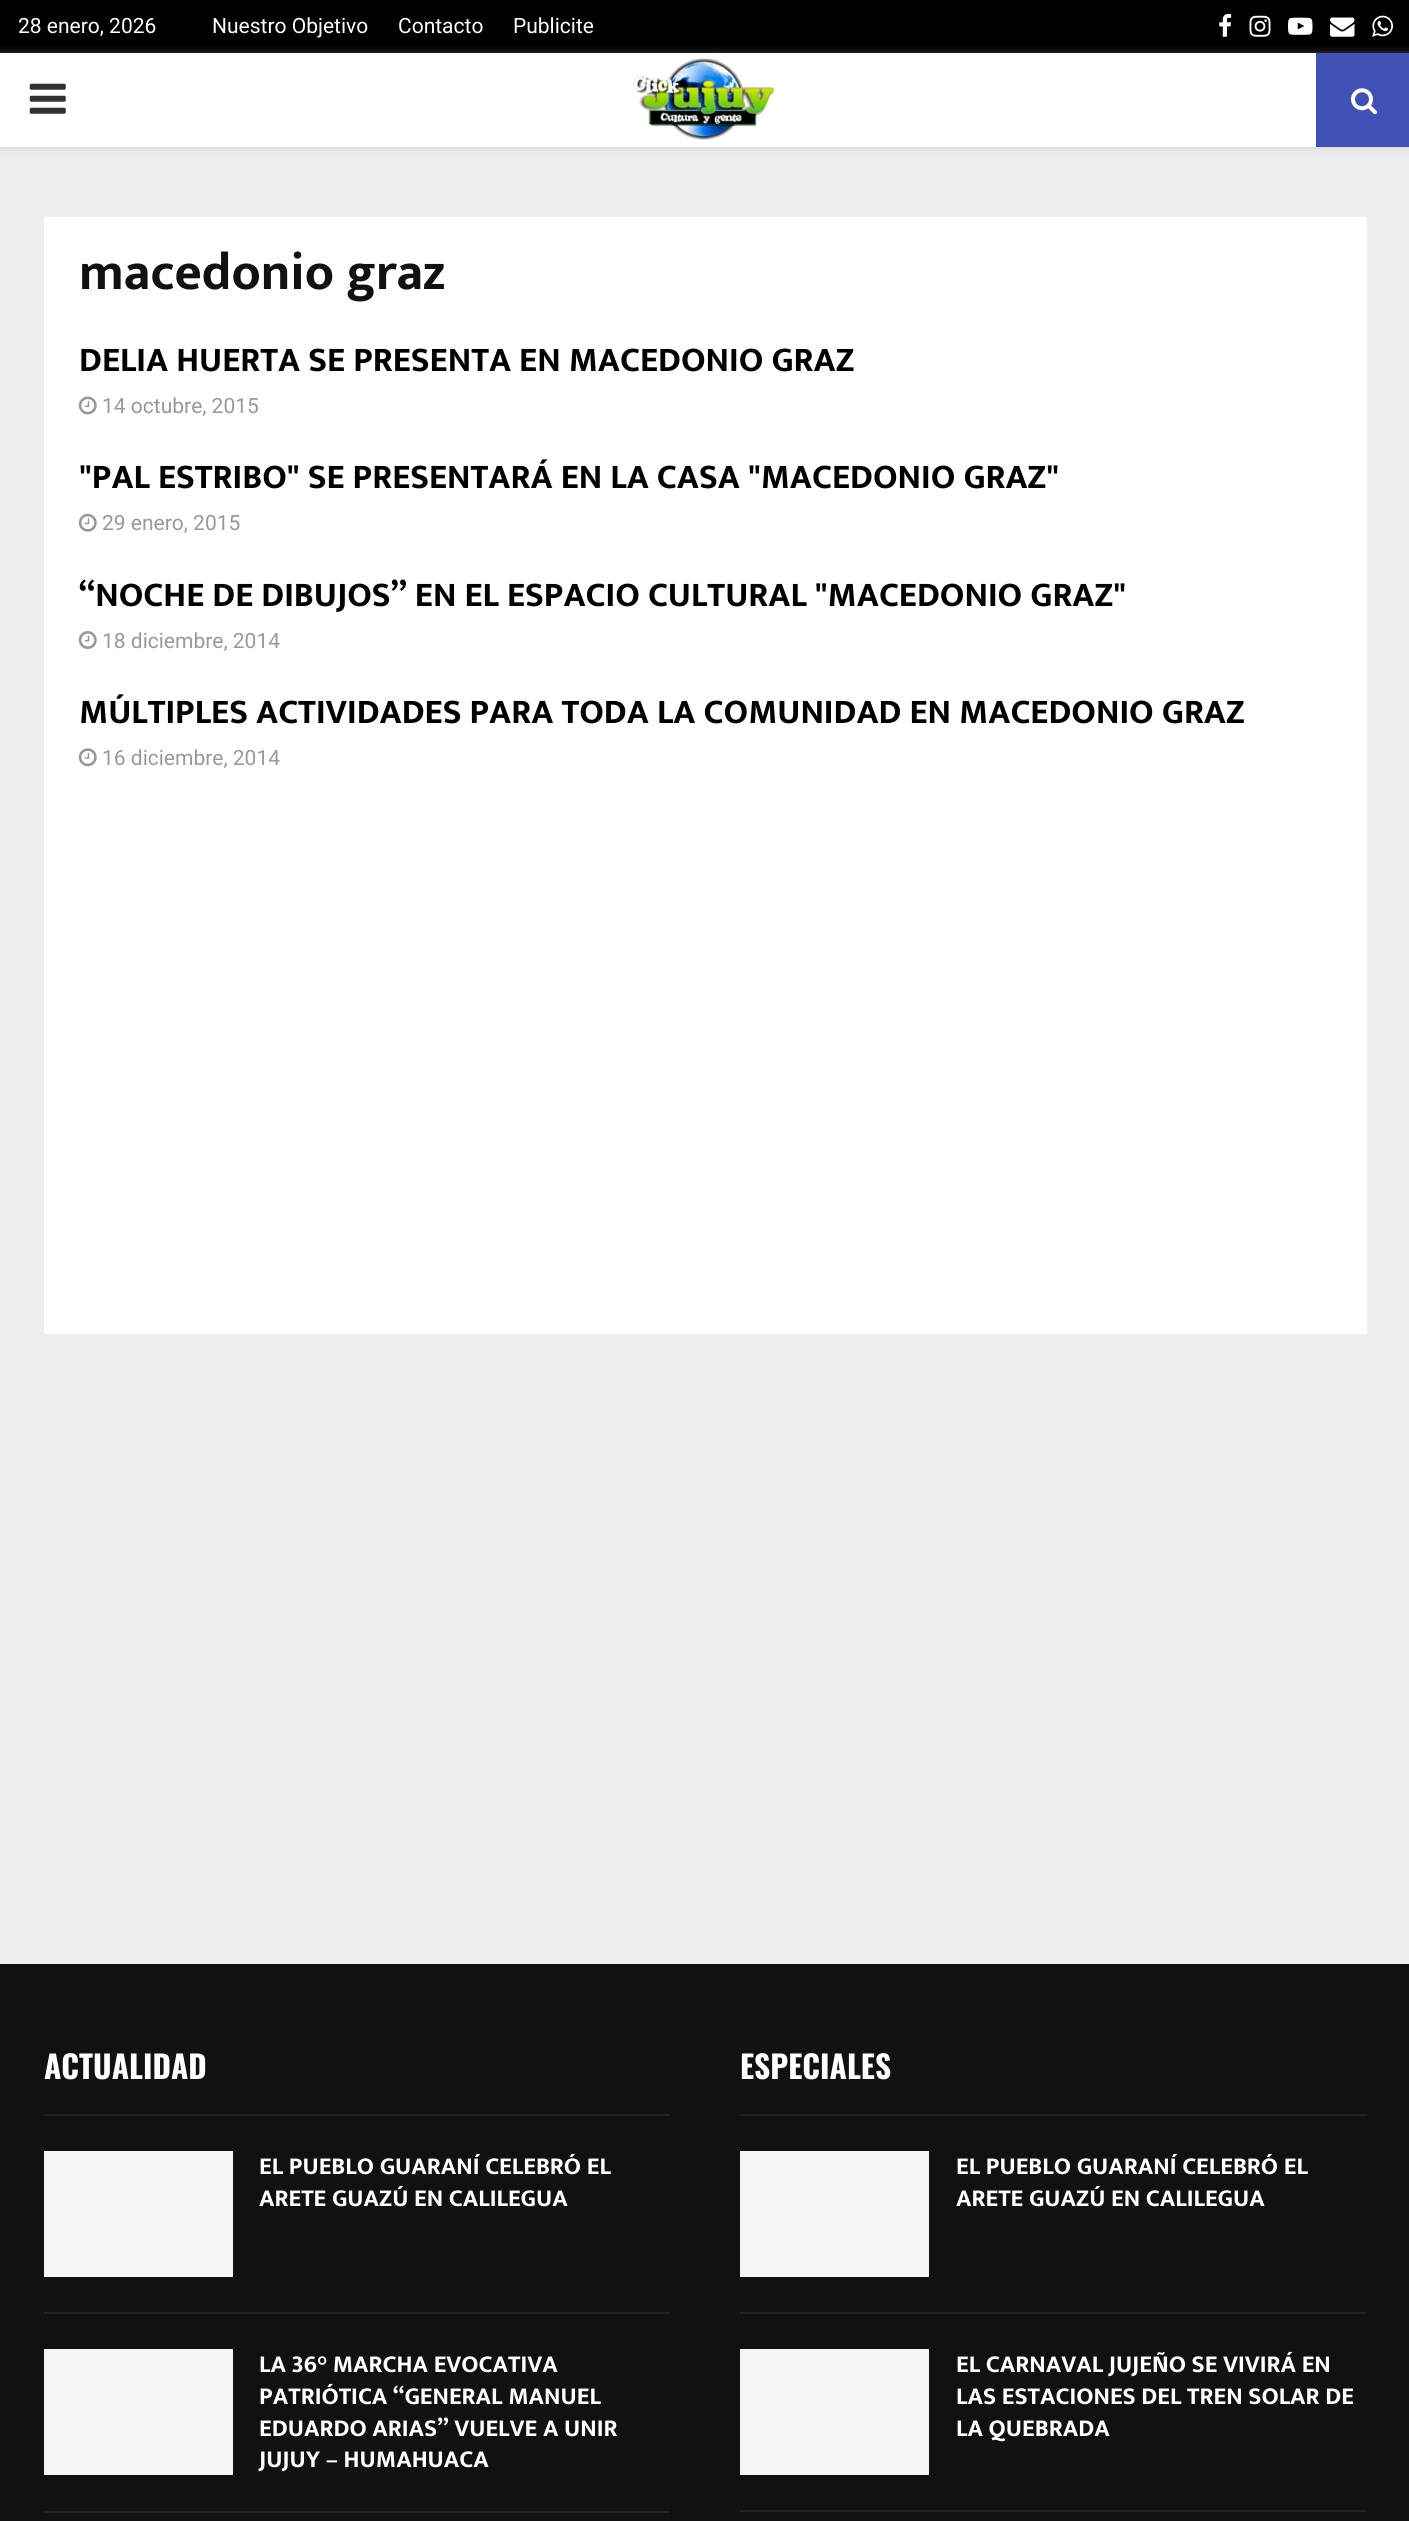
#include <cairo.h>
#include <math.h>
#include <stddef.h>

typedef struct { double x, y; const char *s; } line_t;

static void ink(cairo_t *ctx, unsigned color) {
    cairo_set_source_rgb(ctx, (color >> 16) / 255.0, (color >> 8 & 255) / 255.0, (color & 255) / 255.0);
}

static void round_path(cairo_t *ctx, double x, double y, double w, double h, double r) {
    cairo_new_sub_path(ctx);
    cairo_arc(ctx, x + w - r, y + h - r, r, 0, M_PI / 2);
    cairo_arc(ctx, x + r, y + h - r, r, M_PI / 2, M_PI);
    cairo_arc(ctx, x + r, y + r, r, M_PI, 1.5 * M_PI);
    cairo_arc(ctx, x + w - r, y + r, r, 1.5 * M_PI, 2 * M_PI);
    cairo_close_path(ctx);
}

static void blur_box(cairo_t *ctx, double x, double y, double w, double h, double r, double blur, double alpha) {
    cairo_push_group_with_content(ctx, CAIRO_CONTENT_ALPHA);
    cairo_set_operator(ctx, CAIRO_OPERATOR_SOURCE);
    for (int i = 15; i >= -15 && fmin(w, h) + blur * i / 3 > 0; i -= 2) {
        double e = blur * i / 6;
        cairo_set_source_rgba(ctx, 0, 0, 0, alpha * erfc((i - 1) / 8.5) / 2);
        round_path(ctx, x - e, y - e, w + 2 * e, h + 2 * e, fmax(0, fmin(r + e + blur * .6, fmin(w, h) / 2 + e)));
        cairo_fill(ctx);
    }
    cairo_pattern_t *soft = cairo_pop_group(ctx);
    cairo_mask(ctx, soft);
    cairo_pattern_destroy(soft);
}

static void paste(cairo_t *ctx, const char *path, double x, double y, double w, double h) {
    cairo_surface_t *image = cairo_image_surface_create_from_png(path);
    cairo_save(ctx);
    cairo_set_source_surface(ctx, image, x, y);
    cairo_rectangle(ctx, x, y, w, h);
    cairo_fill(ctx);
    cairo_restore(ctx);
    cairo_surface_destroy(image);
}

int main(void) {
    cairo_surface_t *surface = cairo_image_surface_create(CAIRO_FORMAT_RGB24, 1409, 2521);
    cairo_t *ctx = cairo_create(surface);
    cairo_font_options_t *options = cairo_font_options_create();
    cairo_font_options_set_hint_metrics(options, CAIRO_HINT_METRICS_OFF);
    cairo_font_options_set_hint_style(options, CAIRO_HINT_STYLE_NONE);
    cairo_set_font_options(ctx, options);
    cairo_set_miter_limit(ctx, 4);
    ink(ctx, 0xEEEEEE);
    cairo_paint(ctx);
    ink(ctx, 0x000000);
    cairo_rectangle(ctx, 0, 0, 1409, 53);
    cairo_fill(ctx);
    cairo_select_font_face(ctx, "Roboto", CAIRO_FONT_SLANT_NORMAL, CAIRO_FONT_WEIGHT_NORMAL);
    cairo_set_font_size(ctx, 21);
    ink(ctx, 0xFFFFFF);
    {
        static const line_t items[] = {
            {18, 33, "28 enero, 2026"},
            {212, 33, "Nuestro Objetivo"},
            {398, 33, "Contacto"},
            {513, 33, "Publicite"},
        };
        for (size_t i = 0; i < sizeof items / sizeof *items; i++) {
            cairo_move_to(ctx, items[i].x, items[i].y);
            cairo_show_text(ctx, items[i].s);
        }
    }
    paste(ctx, "media/1.png", 1219, 14, 13, 23);
    paste(ctx, "media/2.png", 1249, 15, 22, 22);
    paste(ctx, "media/3.png", 1288, 17, 25, 18);
    paste(ctx, "media/4.png", 1330, 17, 25, 20);
    paste(ctx, "media/5.png", 1372, 15, 21, 22);
    ink(ctx, 0xBEBEBE);
    blur_box(ctx, 0, 54, 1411, 95, 0, 4.5, 0.46);
    ink(ctx, 0xFFFFFF);
    cairo_rectangle(ctx, 0, 53, 1316, 94);
    cairo_fill(ctx);
    paste(ctx, "media/6.png", 29, 83, 37, 31);
    paste(ctx, "media/7.png", 633, 58, 141, 82);
    ink(ctx, 0x3F51B5);
    cairo_rectangle(ctx, 1316, 53, 93, 94);
    cairo_fill(ctx);
    paste(ctx, "media/8.png", 1351, 88, 26, 27);
    ink(ctx, 0xFFFFFF);
    cairo_rectangle(ctx, 44, 217, 1323, 1117);
    cairo_fill(ctx);
    cairo_select_font_face(ctx, "Mukta Vaani", CAIRO_FONT_SLANT_NORMAL, CAIRO_FONT_WEIGHT_BOLD);
    cairo_set_font_size(ctx, 52.5);
    ink(ctx, 0x111111);
    cairo_move_to(ctx, 79, 289);
    cairo_show_text(ctx, "macedonio graz");
    cairo_set_font_size(ctx, 35);
    ink(ctx, 0x000000);
    cairo_move_to(ctx, 79, 371);
    cairo_show_text(ctx, "DELIA HUERTA SE PRESENTA EN MACEDONIO GRAZ");
    paste(ctx, "media/9.png", 78, 396, 19, 19);
    cairo_select_font_face(ctx, "Roboto", CAIRO_FONT_SLANT_NORMAL, CAIRO_FONT_WEIGHT_NORMAL);
    cairo_set_font_size(ctx, 21);
    ink(ctx, 0x999999);
    cairo_move_to(ctx, 102, 413);
    cairo_show_text(ctx, "14 octubre, 2015");
    cairo_select_font_face(ctx, "Mukta Vaani", CAIRO_FONT_SLANT_NORMAL, CAIRO_FONT_WEIGHT_BOLD);
    cairo_set_font_size(ctx, 35);
    ink(ctx, 0x000000);
    cairo_move_to(ctx, 79, 488);
    cairo_show_text(ctx, "\"PAL ESTRIBO\" SE PRESENTARÁ EN LA CASA \"MACEDONIO GRAZ\"");
    paste(ctx, "media/10.png", 78, 513, 19, 19);
    cairo_select_font_face(ctx, "Roboto", CAIRO_FONT_SLANT_NORMAL, CAIRO_FONT_WEIGHT_NORMAL);
    cairo_set_font_size(ctx, 21);
    ink(ctx, 0x999999);
    cairo_move_to(ctx, 102, 530);
    cairo_show_text(ctx, "29 enero, 2015");
    cairo_select_font_face(ctx, "Mukta Vaani", CAIRO_FONT_SLANT_NORMAL, CAIRO_FONT_WEIGHT_BOLD);
    cairo_set_font_size(ctx, 35);
    ink(ctx, 0x000000);
    cairo_move_to(ctx, 79, 606);
    cairo_show_text(ctx, "“NOCHE DE DIBUJOS” EN EL ESPACIO CULTURAL \"MACEDONIO GRAZ\"");
    paste(ctx, "media/11.png", 78, 631, 19, 18);
    cairo_select_font_face(ctx, "Roboto", CAIRO_FONT_SLANT_NORMAL, CAIRO_FONT_WEIGHT_NORMAL);
    cairo_set_font_size(ctx, 21);
    ink(ctx, 0x999999);
    cairo_move_to(ctx, 102, 648);
    cairo_show_text(ctx, "18 diciembre, 2014");
    cairo_select_font_face(ctx, "Mukta Vaani", CAIRO_FONT_SLANT_NORMAL, CAIRO_FONT_WEIGHT_BOLD);
    cairo_set_font_size(ctx, 35);
    ink(ctx, 0x000000);
    cairo_move_to(ctx, 79, 723);
    cairo_show_text(ctx, "MÚLTIPLES ACTIVIDADES PARA TODA LA COMUNIDAD EN MACEDONIO GRAZ");
    paste(ctx, "media/12.png", 78, 748, 19, 19);
    cairo_select_font_face(ctx, "Roboto", CAIRO_FONT_SLANT_NORMAL, CAIRO_FONT_WEIGHT_NORMAL);
    cairo_set_font_size(ctx, 21);
    ink(ctx, 0x999999);
    cairo_move_to(ctx, 102, 765);
    cairo_show_text(ctx, "16 diciembre, 2014");
    ink(ctx, 0x111111);
    cairo_rectangle(ctx, 0, 1964, 1409, 557);
    cairo_fill(ctx);
    ink(ctx, 0x212121);
    cairo_rectangle(ctx, 44, 2114, 626, 2);
    cairo_fill(ctx);
    cairo_select_font_face(ctx, "Oswald", CAIRO_FONT_SLANT_NORMAL, CAIRO_FONT_WEIGHT_BOLD);
    cairo_set_font_size(ctx, 31.5);
    ink(ctx, 0xFFFFFF);
    cairo_move_to(ctx, 44, 2079);
    cairo_show_text(ctx, "ACTUALIDAD");
    ink(ctx, 0x212121);
    cairo_rectangle(ctx, 44, 2312, 626, 2);
    cairo_fill(ctx);
    ink(ctx, 0xF5F5F5);
    cairo_rectangle(ctx, 44, 2151, 189, 126);
    cairo_fill(ctx);
    cairo_select_font_face(ctx, "Mukta Vaani", CAIRO_FONT_SLANT_NORMAL, CAIRO_FONT_WEIGHT_BOLD);
    cairo_set_font_size(ctx, 24.5);
    ink(ctx, 0xFFFFFF);
    cairo_move_to(ctx, 259, 2174);
    cairo_show_text(ctx, "EL PUEBLO GUARANÍ CELEBRÓ EL");
    cairo_move_to(ctx, 259, 2206);
    cairo_show_text(ctx, "ARETE GUAZÚ EN CALILEGUA");
    ink(ctx, 0x212121);
    cairo_rectangle(ctx, 44, 2511, 626, 2);
    cairo_fill(ctx);
    ink(ctx, 0xF5F5F5);
    cairo_rectangle(ctx, 44, 2349, 189, 126);
    cairo_fill(ctx);
    ink(ctx, 0xFFFFFF);
    {
        static const line_t items[] = {
            {259, 2372, "LA 36° MARCHA EVOCATIVA"},
            {259, 2404, "PATRIÓTICA “GENERAL MANUEL"},
            {259, 2436, "EDUARDO ARIAS” VUELVE A UNIR"},
            {259, 2467, "JUJUY – HUMAHUACA"},
        };
        for (size_t i = 0; i < sizeof items / sizeof *items; i++) {
            cairo_move_to(ctx, items[i].x, items[i].y);
            cairo_show_text(ctx, items[i].s);
        }
    }
    ink(ctx, 0x212121);
    cairo_rectangle(ctx, 740, 2114, 627, 2);
    cairo_fill(ctx);
    cairo_select_font_face(ctx, "Oswald", CAIRO_FONT_SLANT_NORMAL, CAIRO_FONT_WEIGHT_BOLD);
    cairo_set_font_size(ctx, 31.5);
    ink(ctx, 0xFFFFFF);
    cairo_move_to(ctx, 740, 2079);
    cairo_show_text(ctx, "ESPECIALES");
    ink(ctx, 0x212121);
    cairo_rectangle(ctx, 740, 2312, 627, 2);
    cairo_fill(ctx);
    ink(ctx, 0xF5F5F5);
    cairo_rectangle(ctx, 740, 2151, 189, 126);
    cairo_fill(ctx);
    cairo_select_font_face(ctx, "Mukta Vaani", CAIRO_FONT_SLANT_NORMAL, CAIRO_FONT_WEIGHT_BOLD);
    cairo_set_font_size(ctx, 24.5);
    ink(ctx, 0xFFFFFF);
    cairo_move_to(ctx, 956, 2174);
    cairo_show_text(ctx, "EL PUEBLO GUARANÍ CELEBRÓ EL");
    cairo_move_to(ctx, 956, 2206);
    cairo_show_text(ctx, "ARETE GUAZÚ EN CALILEGUA");
    ink(ctx, 0x212121);
    cairo_rectangle(ctx, 740, 2510, 627, 2);
    cairo_fill(ctx);
    ink(ctx, 0xF5F5F5);
    cairo_rectangle(ctx, 740, 2349, 189, 126);
    cairo_fill(ctx);
    ink(ctx, 0xFFFFFF);
    {
        static const line_t items[] = {
            {956, 2372, "EL CARNAVAL JUJEÑO SE VIVIRÁ EN"},
            {956, 2404, "LAS ESTACIONES DEL TREN SOLAR DE"},
            {956, 2436, "LA QUEBRADA"},
        };
        for (size_t i = 0; i < sizeof items / sizeof *items; i++) {
            cairo_move_to(ctx, items[i].x, items[i].y);
            cairo_show_text(ctx, items[i].s);
        }
    }
    cairo_surface_write_to_png(surface, "image.png");
    cairo_font_options_destroy(options);
    cairo_destroy(ctx);
    cairo_surface_destroy(surface);
    return 0;
}
